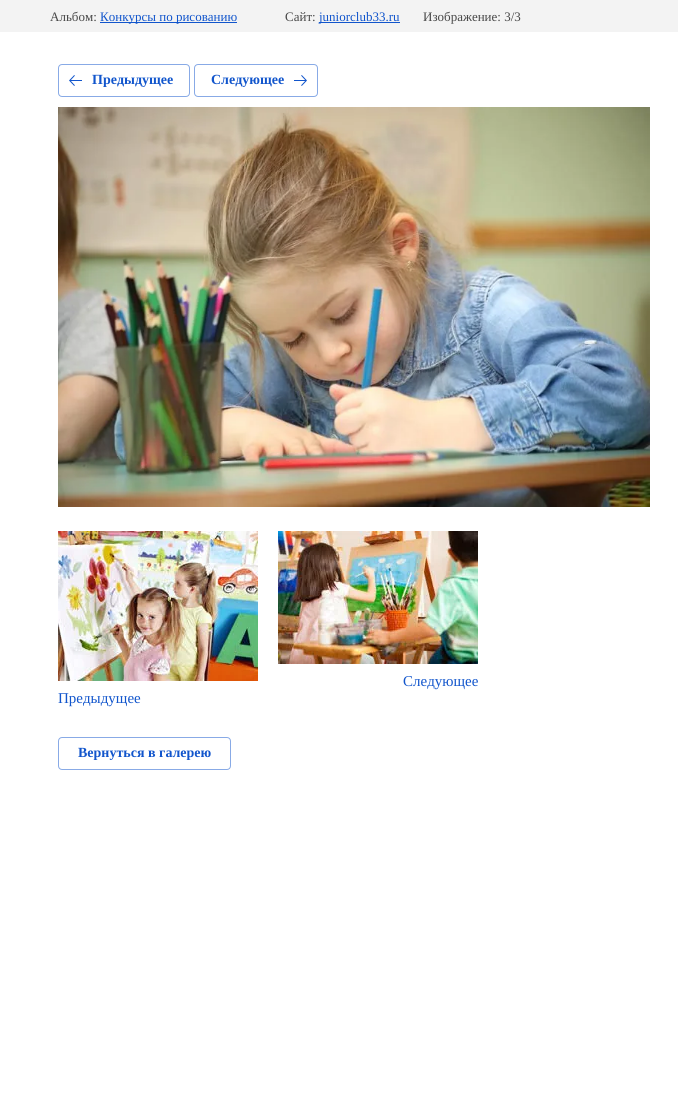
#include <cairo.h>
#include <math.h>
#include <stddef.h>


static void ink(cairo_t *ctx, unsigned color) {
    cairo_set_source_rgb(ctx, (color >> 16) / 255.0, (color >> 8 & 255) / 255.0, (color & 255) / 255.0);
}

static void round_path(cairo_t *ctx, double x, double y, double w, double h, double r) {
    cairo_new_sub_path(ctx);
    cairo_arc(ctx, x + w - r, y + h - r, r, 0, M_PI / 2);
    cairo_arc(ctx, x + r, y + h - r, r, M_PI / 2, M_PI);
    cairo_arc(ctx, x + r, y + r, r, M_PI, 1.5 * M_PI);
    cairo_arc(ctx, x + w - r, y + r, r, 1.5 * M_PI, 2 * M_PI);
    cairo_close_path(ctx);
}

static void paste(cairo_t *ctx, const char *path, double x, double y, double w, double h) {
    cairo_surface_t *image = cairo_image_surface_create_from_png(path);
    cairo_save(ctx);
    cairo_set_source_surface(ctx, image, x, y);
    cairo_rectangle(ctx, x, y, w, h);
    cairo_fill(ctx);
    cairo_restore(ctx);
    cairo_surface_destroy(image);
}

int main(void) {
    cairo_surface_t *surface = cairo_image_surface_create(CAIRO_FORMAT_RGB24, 678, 1120);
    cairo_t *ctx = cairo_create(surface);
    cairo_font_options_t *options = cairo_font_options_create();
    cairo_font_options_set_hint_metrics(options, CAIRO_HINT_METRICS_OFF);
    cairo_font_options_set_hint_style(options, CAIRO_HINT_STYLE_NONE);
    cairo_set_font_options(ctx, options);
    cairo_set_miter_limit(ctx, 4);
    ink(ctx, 0xFFFFFF);
    cairo_paint(ctx);
    ink(ctx, 0xF3F3F3);
    cairo_rectangle(ctx, 0, 0, 678, 32);
    cairo_fill(ctx);
    cairo_select_font_face(ctx, "Liberation Serif", CAIRO_FONT_SLANT_NORMAL, CAIRO_FONT_WEIGHT_NORMAL);
    cairo_set_font_size(ctx, 13);
    ink(ctx, 0x484848);
    cairo_move_to(ctx, 50, 21);
    cairo_show_text(ctx, "Альбом:");
    ink(ctx, 0x1155CC);
    cairo_rectangle(ctx, 100, 22, 137, 1);
    cairo_fill(ctx);
    cairo_move_to(ctx, 100, 21);
    cairo_show_text(ctx, "Конкурсы по рисованию");
    ink(ctx, 0x484848);
    cairo_move_to(ctx, 285, 21);
    cairo_show_text(ctx, "Сайт:");
    ink(ctx, 0x1155CC);
    cairo_rectangle(ctx, 319, 22, 81, 1);
    cairo_fill(ctx);
    cairo_move_to(ctx, 319, 21);
    cairo_show_text(ctx, "juniorclub33.ru");
    ink(ctx, 0x484848);
    cairo_move_to(ctx, 423, 21);
    cairo_show_text(ctx, "Изображение: 3/3");
    round_path(ctx, 58.5, 64.5, 131, 32, 3.5);
    ink(ctx, 0x88AAE6);
    cairo_set_line_width(ctx, 1);
    cairo_stroke(ctx);
    paste(ctx, "media/1.png", 69, 75, 13, 11);
    cairo_select_font_face(ctx, "Liberation Serif", CAIRO_FONT_SLANT_NORMAL, CAIRO_FONT_WEIGHT_BOLD);
    cairo_set_font_size(ctx, 14);
    ink(ctx, 0x1155CC);
    cairo_move_to(ctx, 92, 84);
    cairo_show_text(ctx, "Предыдущее");
    round_path(ctx, 194.5, 64.5, 123, 32, 3.5);
    ink(ctx, 0x88AAE6);
    cairo_stroke(ctx);
    ink(ctx, 0x1155CC);
    cairo_move_to(ctx, 211, 84);
    cairo_show_text(ctx, "Следующее");
    paste(ctx, "media/2.png", 294, 75, 13, 11);
    paste(ctx, "media/3.png", 58, 107, 592, 400);
    paste(ctx, "media/4.png", 278, 531, 200, 133);
    cairo_select_font_face(ctx, "Liberation Serif", CAIRO_FONT_SLANT_NORMAL, CAIRO_FONT_WEIGHT_NORMAL);
    cairo_set_font_size(ctx, 15);
    cairo_move_to(ctx, 403, 686);
    cairo_show_text(ctx, "Следующее");
    paste(ctx, "media/5.png", 58, 531, 200, 150);
    cairo_move_to(ctx, 58, 703);
    cairo_show_text(ctx, "Предыдущее");
    round_path(ctx, 58.5, 737.5, 172, 32, 3.5);
    ink(ctx, 0x88AAE6);
    cairo_stroke(ctx);
    cairo_select_font_face(ctx, "Liberation Serif", CAIRO_FONT_SLANT_NORMAL, CAIRO_FONT_WEIGHT_BOLD);
    cairo_set_font_size(ctx, 14);
    ink(ctx, 0x1155CC);
    cairo_move_to(ctx, 78, 757);
    cairo_show_text(ctx, "Вернуться в галерею");
    cairo_surface_write_to_png(surface, "image.png");
    cairo_font_options_destroy(options);
    cairo_destroy(ctx);
    cairo_surface_destroy(surface);
    return 0;
}
